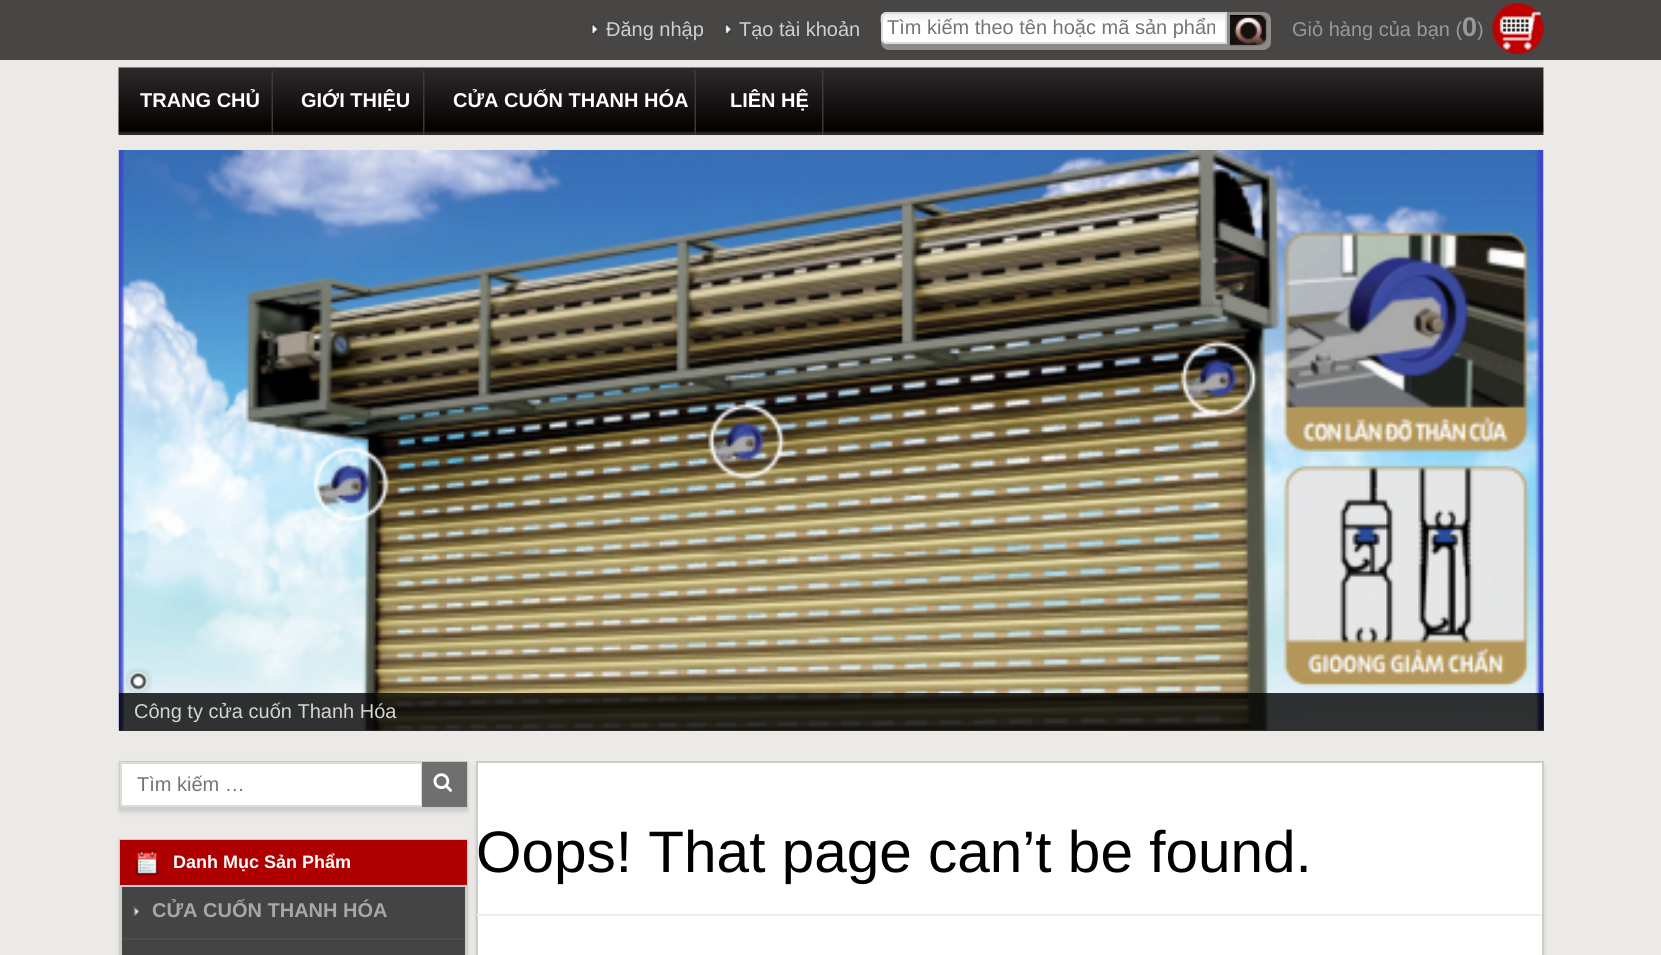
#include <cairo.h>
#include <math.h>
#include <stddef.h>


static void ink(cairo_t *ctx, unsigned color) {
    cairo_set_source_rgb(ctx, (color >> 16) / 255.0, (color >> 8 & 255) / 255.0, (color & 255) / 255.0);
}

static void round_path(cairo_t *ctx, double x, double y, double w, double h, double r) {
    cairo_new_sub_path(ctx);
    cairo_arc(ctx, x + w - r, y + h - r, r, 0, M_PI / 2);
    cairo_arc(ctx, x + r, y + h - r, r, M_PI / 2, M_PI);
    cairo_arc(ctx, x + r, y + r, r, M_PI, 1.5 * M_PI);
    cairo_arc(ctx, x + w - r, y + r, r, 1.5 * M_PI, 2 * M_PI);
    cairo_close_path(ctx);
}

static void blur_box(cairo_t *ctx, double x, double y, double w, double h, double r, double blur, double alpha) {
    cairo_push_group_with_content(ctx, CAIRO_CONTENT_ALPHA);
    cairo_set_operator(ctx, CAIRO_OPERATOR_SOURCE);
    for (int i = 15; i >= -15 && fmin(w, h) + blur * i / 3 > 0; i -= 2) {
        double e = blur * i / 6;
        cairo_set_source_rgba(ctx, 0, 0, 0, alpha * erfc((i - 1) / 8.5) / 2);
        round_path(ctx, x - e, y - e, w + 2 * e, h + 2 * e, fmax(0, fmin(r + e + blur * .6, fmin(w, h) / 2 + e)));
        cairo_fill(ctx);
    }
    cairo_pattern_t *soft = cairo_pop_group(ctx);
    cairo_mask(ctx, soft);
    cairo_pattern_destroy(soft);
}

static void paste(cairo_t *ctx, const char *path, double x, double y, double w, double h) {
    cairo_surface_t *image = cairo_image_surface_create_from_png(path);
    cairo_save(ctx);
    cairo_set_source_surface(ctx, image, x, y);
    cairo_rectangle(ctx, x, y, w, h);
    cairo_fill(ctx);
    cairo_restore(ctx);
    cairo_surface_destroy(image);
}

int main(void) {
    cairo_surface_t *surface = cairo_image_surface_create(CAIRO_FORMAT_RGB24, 1661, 955);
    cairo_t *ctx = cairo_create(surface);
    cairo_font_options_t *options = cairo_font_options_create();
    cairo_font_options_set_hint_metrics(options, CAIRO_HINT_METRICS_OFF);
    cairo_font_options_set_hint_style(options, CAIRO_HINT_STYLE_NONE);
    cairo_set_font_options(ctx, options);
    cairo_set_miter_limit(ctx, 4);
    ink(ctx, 0xECEAE6);
    cairo_paint(ctx);
    ink(ctx, 0x474645);
    cairo_rectangle(ctx, 0, 0, 1661, 60);
    cairo_fill(ctx);
    paste(ctx, "media/1.png", 591, 24, 8, 11);
    cairo_select_font_face(ctx, "Liberation Sans", CAIRO_FONT_SLANT_NORMAL, CAIRO_FONT_WEIGHT_NORMAL);
    cairo_set_font_size(ctx, 20);
    ink(ctx, 0xCFD0D0);
    cairo_move_to(ctx, 606, 36);
    cairo_show_text(ctx, "Đăng nhập");
    paste(ctx, "media/2.png", 724, 24, 8, 11);
    cairo_move_to(ctx, 739, 36);
    cairo_show_text(ctx, "Tạo tài khoản");
    ink(ctx, 0x8D8A8A);
    round_path(ctx, 881, 12, 390, 38, 8);
    cairo_fill(ctx);
    ink(ctx, 0xFFFFFF);
    cairo_new_path(ctx);
    cairo_move_to(ctx, 887, 12);
    cairo_line_to(ctx, 1227, 12);
    cairo_line_to(ctx, 1227, 44);
    cairo_line_to(ctx, 887, 44);
    cairo_curve_to(ctx, 883.5, 44, 881, 41.5, 881, 38);
    cairo_line_to(ctx, 881, 18);
    cairo_curve_to(ctx, 881, 14.5, 883.5, 12, 887, 12);
    cairo_close_path(ctx);
    cairo_fill(ctx);
    paste(ctx, "media/3.png", 880, 13, 345, 10);
    cairo_new_path(ctx);
    cairo_move_to(ctx, 887, 13);
    cairo_line_to(ctx, 1226, 13);
    cairo_line_to(ctx, 1226, 43);
    cairo_line_to(ctx, 887, 43);
    cairo_curve_to(ctx, 884, 43, 882, 41, 882, 38);
    cairo_line_to(ctx, 882, 18);
    cairo_curve_to(ctx, 882, 15, 884, 13, 887, 13);
    cairo_close_path(ctx);
    ink(ctx, 0xDCDCDC);
    cairo_stroke(ctx);
    cairo_save(ctx);
    cairo_rectangle(ctx, 887, 15, 328, 23);
    cairo_clip(ctx);
    ink(ctx, 0x757575);
    cairo_move_to(ctx, 887, 34);
    cairo_show_text(ctx, "Tìm kiếm theo tên hoặc mã sản phẩm");
    cairo_restore(ctx);
    paste(ctx, "media/4.png", 1230, 15, 38, 31);
    paste(ctx, "media/5.png", 1492, 3, 52, 51);
    ink(ctx, 0x999999);
    cairo_move_to(ctx, 1292, 36);
    cairo_show_text(ctx, "Giỏ hàng của bạn (");
    cairo_select_font_face(ctx, "Liberation Sans", CAIRO_FONT_SLANT_NORMAL, CAIRO_FONT_WEIGHT_BOLD);
    cairo_set_font_size(ctx, 27);
    cairo_move_to(ctx, 1462, 36);
    cairo_show_text(ctx, "0");
    cairo_select_font_face(ctx, "Liberation Sans", CAIRO_FONT_SLANT_NORMAL, CAIRO_FONT_WEIGHT_NORMAL);
    cairo_set_font_size(ctx, 20);
    cairo_move_to(ctx, 1477, 36);
    cairo_show_text(ctx, ")");
    ink(ctx, 0xFFFFFF);
    cairo_rectangle(ctx, 1543, 68, 1, 67);
    cairo_fill(ctx);
    paste(ctx, "media/6.png", 118, 67, 1426, 68);
    paste(ctx, "media/7.png", 271, 70, 2, 65);
    cairo_select_font_face(ctx, "Liberation Sans", CAIRO_FONT_SLANT_NORMAL, CAIRO_FONT_WEIGHT_BOLD);
    cairo_move_to(ctx, 140, 107);
    cairo_show_text(ctx, "TRANG CHỦ");
    paste(ctx, "media/8.png", 423, 70, 2, 65);
    cairo_move_to(ctx, 301, 107);
    cairo_show_text(ctx, "GIỚI THIỆU");
    paste(ctx, "media/9.png", 694, 70, 2, 65);
    cairo_move_to(ctx, 453, 107);
    cairo_show_text(ctx, "CỬA CUỐN THANH HÓA");
    paste(ctx, "media/8.png", 822, 70, 2, 65);
    cairo_move_to(ctx, 730, 107);
    cairo_show_text(ctx, "LIÊN HỆ");
    paste(ctx, "media/11.png", 118, 150, 1426, 581);
    paste(ctx, "media/10.png", 125, 668, 27, 26);
    cairo_set_source_rgba(ctx, 0, 0, 0, 0.8);
    cairo_rectangle(ctx, 119, 693, 1425, 38);
    cairo_fill(ctx);
    cairo_select_font_face(ctx, "Liberation Sans", CAIRO_FONT_SLANT_NORMAL, CAIRO_FONT_WEIGHT_NORMAL);
    ink(ctx, 0xD5D5D5);
    cairo_move_to(ctx, 134, 718);
    cairo_show_text(ctx, "Công ty cửa cuốn Thanh Hóa");
    ink(ctx, 0xCCCCCC);
    blur_box(ctx, 119, 764, 349, 48, 0, 2, 1);
    cairo_rectangle(ctx, 120, 762, 347, 46);
    ink(ctx, 0xCCCCCC);
    cairo_stroke(ctx);
    ink(ctx, 0xFFFFFF);
    cairo_rectangle(ctx, 121, 763, 301, 43);
    cairo_fill_preserve(ctx);
    ink(ctx, 0xDCDCDC);
    cairo_stroke(ctx);
    ink(ctx, 0x757575);
    cairo_move_to(ctx, 137, 791);
    cairo_show_text(ctx, "Tìm kiếm …");
    ink(ctx, 0x6F6F6F);
    cairo_rectangle(ctx, 422, 762, 45, 45);
    cairo_fill(ctx);
    paste(ctx, "media/12.png", 433, 773, 19, 19);
    ink(ctx, 0xCCCCCC);
    blur_box(ctx, 119, 842, 349, 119, 0, 2, 1);
    cairo_rectangle(ctx, 120, 840, 347, 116);
    ink(ctx, 0xCCCCCC);
    cairo_stroke(ctx);
    ink(ctx, 0xAE0000);
    cairo_rectangle(ctx, 120, 840, 347, 45);
    cairo_fill(ctx);
    paste(ctx, "media/13.png", 135, 850, 24, 25);
    cairo_select_font_face(ctx, "Liberation Sans", CAIRO_FONT_SLANT_NORMAL, CAIRO_FONT_WEIGHT_BOLD);
    cairo_set_font_size(ctx, 18);
    ink(ctx, 0xFFFFFF);
    cairo_move_to(ctx, 173, 868);
    cairo_show_text(ctx, "Danh Mục Sản Phẩm");
    cairo_rectangle(ctx, 121, 886, 345, 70);
    ink(ctx, 0xCCCCCC);
    cairo_stroke(ctx);
    ink(ctx, 0x444444);
    cairo_rectangle(ctx, 122, 887, 343, 68);
    cairo_fill(ctx);
    paste(ctx, "media/14.png", 133, 906, 7, 12);
    ink(ctx, 0x4F4E4E);
    cairo_rectangle(ctx, 122, 938, 343, 2);
    cairo_fill(ctx);
    cairo_set_font_size(ctx, 20);
    ink(ctx, 0xA7A7A7);
    cairo_move_to(ctx, 152, 917);
    cairo_show_text(ctx, "CỬA CUỐN THANH HÓA");
    ink(ctx, 0xCCCCCC);
    blur_box(ctx, 476, 767, 1068, 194, 0, 2, 1);
    ink(ctx, 0xFFFFFF);
    cairo_rectangle(ctx, 477, 762, 1066, 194);
    cairo_fill_preserve(ctx);
    ink(ctx, 0xCCCCCC);
    cairo_stroke(ctx);
    ink(ctx, 0xEEEEEE);
    cairo_rectangle(ctx, 477, 914, 1065, 2);
    cairo_fill(ctx);
    cairo_select_font_face(ctx, "Liberation Sans", CAIRO_FONT_SLANT_NORMAL, CAIRO_FONT_WEIGHT_NORMAL);
    cairo_set_font_size(ctx, 58.5);
    ink(ctx, 0x000000);
    cairo_move_to(ctx, 476, 872);
    cairo_show_text(ctx, "Oops! That page can’t be found.");
    cairo_surface_write_to_png(surface, "image.png");
    cairo_font_options_destroy(options);
    cairo_destroy(ctx);
    cairo_surface_destroy(surface);
    return 0;
}
